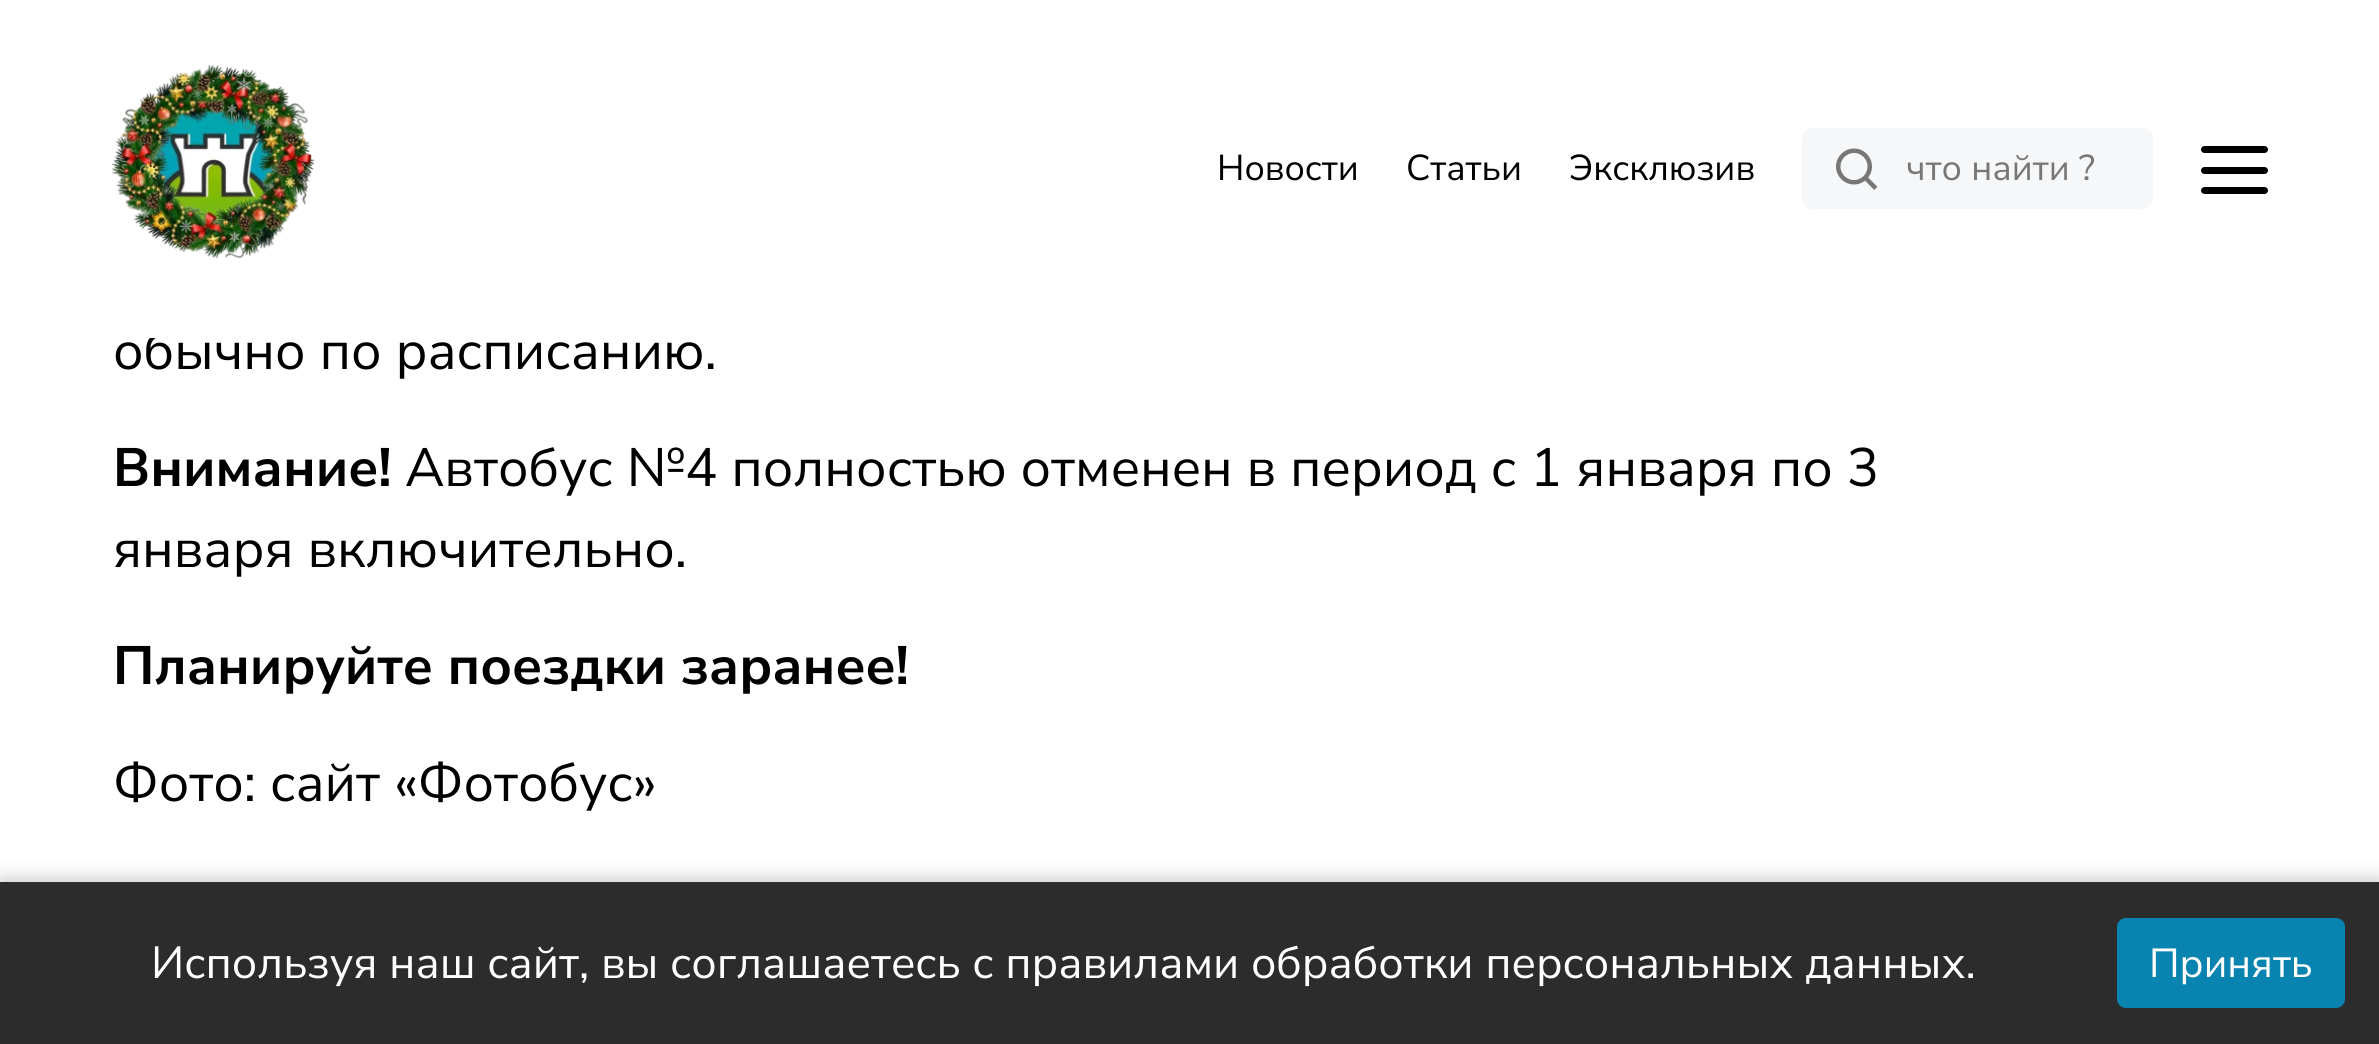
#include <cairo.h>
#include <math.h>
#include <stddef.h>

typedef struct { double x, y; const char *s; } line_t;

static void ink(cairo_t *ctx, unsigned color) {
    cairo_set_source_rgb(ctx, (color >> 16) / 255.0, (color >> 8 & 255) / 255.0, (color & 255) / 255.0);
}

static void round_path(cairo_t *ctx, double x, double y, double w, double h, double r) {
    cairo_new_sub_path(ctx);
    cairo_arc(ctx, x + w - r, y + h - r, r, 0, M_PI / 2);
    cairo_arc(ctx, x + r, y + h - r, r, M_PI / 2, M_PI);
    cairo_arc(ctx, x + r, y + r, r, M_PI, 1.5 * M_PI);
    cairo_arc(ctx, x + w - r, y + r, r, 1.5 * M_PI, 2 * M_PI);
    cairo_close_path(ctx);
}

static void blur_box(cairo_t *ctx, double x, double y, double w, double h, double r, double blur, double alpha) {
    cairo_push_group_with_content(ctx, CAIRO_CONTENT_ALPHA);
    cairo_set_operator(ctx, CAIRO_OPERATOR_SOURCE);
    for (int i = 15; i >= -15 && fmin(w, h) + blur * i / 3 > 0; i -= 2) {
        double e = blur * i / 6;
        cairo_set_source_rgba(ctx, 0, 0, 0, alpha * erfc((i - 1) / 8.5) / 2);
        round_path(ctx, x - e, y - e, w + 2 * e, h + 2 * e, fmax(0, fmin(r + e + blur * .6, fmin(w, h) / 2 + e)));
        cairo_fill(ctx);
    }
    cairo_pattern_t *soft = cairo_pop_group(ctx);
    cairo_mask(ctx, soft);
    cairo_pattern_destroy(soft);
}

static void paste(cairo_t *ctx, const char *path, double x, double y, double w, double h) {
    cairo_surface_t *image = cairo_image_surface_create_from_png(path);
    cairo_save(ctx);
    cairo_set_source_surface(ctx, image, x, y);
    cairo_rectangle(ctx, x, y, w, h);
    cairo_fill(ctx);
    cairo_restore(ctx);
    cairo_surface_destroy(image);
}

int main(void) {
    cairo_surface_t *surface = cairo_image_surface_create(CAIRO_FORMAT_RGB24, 2379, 1044);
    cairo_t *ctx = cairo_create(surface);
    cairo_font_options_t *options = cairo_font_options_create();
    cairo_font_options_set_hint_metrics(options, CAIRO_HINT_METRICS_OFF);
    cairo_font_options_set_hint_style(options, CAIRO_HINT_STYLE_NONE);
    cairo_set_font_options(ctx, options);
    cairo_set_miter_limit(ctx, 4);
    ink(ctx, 0xFFFFFF);
    cairo_paint(ctx);
    cairo_select_font_face(ctx, "Nunito Sans", CAIRO_FONT_SLANT_NORMAL, CAIRO_FONT_WEIGHT_NORMAL);
    cairo_set_font_size(ctx, 54);
    ink(ctx, 0x000000);
    cairo_move_to(ctx, 113, 369);
    cairo_show_text(ctx, "обычно по расписанию.");
    ink(ctx, 0xFFFFFF);
    cairo_rectangle(ctx, 149, 330, 21, 8);
    cairo_fill(ctx);
    paste(ctx, "media/1.png", 112, 64, 203, 195);
    cairo_set_font_size(ctx, 36);
    ink(ctx, 0x000000);
    {
        static const line_t items[] = {
            {1217, 180, "Новости"},
            {1406, 180, "Статьи"},
            {1569, 180, "Эксклюзив"},
        };
        for (size_t i = 0; i < sizeof items / sizeof *items; i++) {
            cairo_move_to(ctx, items[i].x, items[i].y);
            cairo_show_text(ctx, items[i].s);
        }
    }
    paste(ctx, "media/2.png", 1802, 128, 351, 81);
    round_path(ctx, 2201, 167, 67, 7, 3.5);
    cairo_fill(ctx);
    round_path(ctx, 2201, 146, 67, 7, 3.5);
    cairo_fill(ctx);
    round_path(ctx, 2201, 187, 67, 7, 3.5);
    cairo_fill(ctx);
    cairo_select_font_face(ctx, "Nunito Sans", CAIRO_FONT_SLANT_NORMAL, CAIRO_FONT_WEIGHT_BOLD);
    cairo_set_font_size(ctx, 54);
    cairo_move_to(ctx, 113, 486);
    cairo_show_text(ctx, "Внимание!");
    cairo_select_font_face(ctx, "Nunito Sans", CAIRO_FONT_SLANT_NORMAL, CAIRO_FONT_WEIGHT_NORMAL);
    cairo_move_to(ctx, 405, 486);
    cairo_show_text(ctx, "Автобус №4 полностью отменен в период с 1 января по 3");
    cairo_move_to(ctx, 113, 567);
    cairo_show_text(ctx, "января включительно.");
    cairo_select_font_face(ctx, "Nunito Sans", CAIRO_FONT_SLANT_NORMAL, CAIRO_FONT_WEIGHT_BOLD);
    cairo_move_to(ctx, 113, 684);
    cairo_show_text(ctx, "Планируйте поездки заранее!");
    cairo_select_font_face(ctx, "Nunito Sans", CAIRO_FONT_SLANT_NORMAL, CAIRO_FONT_WEIGHT_NORMAL);
    cairo_move_to(ctx, 113, 801);
    cairo_show_text(ctx, "Фото: сайт «Фотобус»");
    ink(ctx, 0x000000);
    blur_box(ctx, 0, 878, 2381, 162, 0, 9, 0.2);
    ink(ctx, 0x2C2C2C);
    cairo_rectangle(ctx, 0, 882, 2379, 162);
    cairo_fill(ctx);
    cairo_set_font_size(ctx, 45);
    ink(ctx, 0xFFFFFF);
    cairo_move_to(ctx, 151, 978);
    cairo_show_text(ctx, "Используя наш сайт, вы соглашаетесь с правилами обработки персональных данных.");
    ink(ctx, 0x0983AF);
    round_path(ctx, 2117, 918, 228, 90, 9);
    cairo_fill(ctx);
    cairo_set_font_size(ctx, 40.5);
    ink(ctx, 0xFFFFFF);
    cairo_move_to(ctx, 2149, 977);
    cairo_show_text(ctx, "Принять");
    cairo_surface_write_to_png(surface, "image.png");
    cairo_font_options_destroy(options);
    cairo_destroy(ctx);
    cairo_surface_destroy(surface);
    return 0;
}
